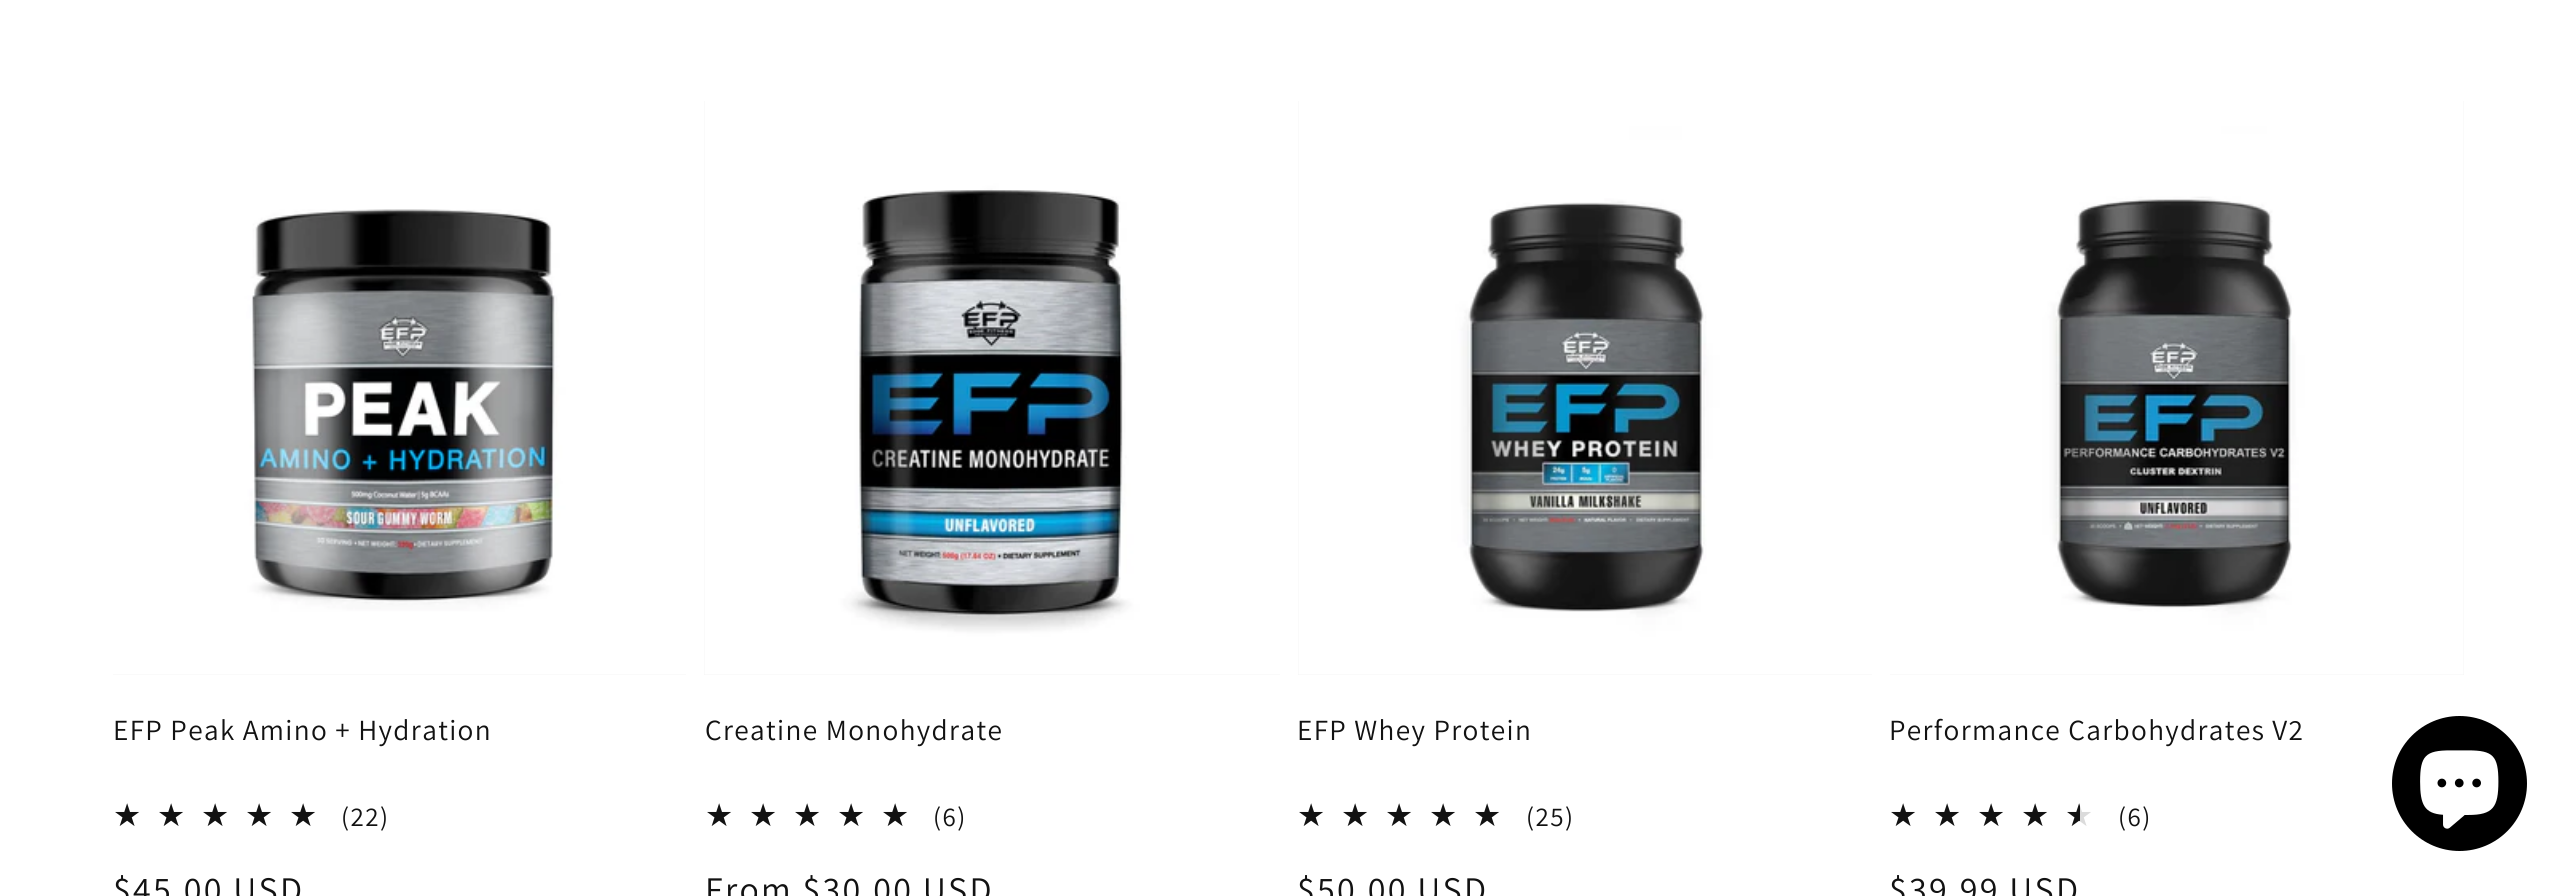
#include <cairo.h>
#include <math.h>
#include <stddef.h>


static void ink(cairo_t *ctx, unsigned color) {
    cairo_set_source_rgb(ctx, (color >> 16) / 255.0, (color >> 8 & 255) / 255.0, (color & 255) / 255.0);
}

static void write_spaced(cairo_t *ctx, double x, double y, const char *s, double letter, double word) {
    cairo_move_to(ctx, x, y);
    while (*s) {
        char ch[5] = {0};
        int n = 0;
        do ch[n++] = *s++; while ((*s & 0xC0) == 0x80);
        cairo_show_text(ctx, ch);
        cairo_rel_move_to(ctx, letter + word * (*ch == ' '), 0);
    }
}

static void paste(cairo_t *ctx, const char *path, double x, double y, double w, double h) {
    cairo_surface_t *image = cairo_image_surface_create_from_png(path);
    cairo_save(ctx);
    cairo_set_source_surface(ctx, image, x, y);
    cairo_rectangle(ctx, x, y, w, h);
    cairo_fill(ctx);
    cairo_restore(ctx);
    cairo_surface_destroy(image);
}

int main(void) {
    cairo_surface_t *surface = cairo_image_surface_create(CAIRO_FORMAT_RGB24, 2575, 896);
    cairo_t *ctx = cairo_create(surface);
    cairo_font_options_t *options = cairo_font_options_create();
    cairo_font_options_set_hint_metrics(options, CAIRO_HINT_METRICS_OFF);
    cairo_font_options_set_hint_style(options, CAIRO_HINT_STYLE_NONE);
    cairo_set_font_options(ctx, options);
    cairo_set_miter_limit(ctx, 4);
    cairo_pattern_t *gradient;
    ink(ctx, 0xFFFFFF);
    cairo_paint(ctx);
    ink(ctx, 0xF3F3F3);
    cairo_rectangle(ctx, 113, 674, 573, 1);
    cairo_fill(ctx);
    paste(ctx, "media/1.png", 113, 101, 573, 574);
    cairo_select_font_face(ctx, "Assistant", CAIRO_FONT_SLANT_NORMAL, CAIRO_FONT_WEIGHT_NORMAL);
    cairo_set_font_size(ctx, 29.25);
    ink(ctx, 0x121212);
    write_spaced(ctx, 113, 740, "EFP Peak Amino + Hydration", 1.35, 0);
    cairo_select_font_face(ctx, "DejaVu Sans", CAIRO_FONT_SLANT_NORMAL, CAIRO_FONT_WEIGHT_NORMAL);
    cairo_set_font_size(ctx, 31.5);
    gradient = cairo_pattern_create_linear(113, 816, 332, 816);
    cairo_pattern_add_color_stop_rgba(gradient, 1, 0.071, 0.071, 0.071, 1);
    cairo_pattern_add_color_stop_rgba(gradient, 1, 0.859, 0.859, 0.859, 1);
    cairo_set_source(ctx, gradient);
    cairo_pattern_destroy(gradient);
    write_spaced(ctx, 113, 826, "★★★★★", 15.75, 0);
    cairo_select_font_face(ctx, "Assistant", CAIRO_FONT_SLANT_NORMAL, CAIRO_FONT_WEIGHT_NORMAL);
    cairo_set_font_size(ctx, 27);
    ink(ctx, 0x121212);
    write_spaced(ctx, 341, 826, "(22)", 1.5, 0);
    cairo_set_font_size(ctx, 36);
    write_spaced(ctx, 113, 902, "$45.00 USD", 2.25, 0);
    ink(ctx, 0xF3F3F3);
    cairo_rectangle(ctx, 704, 101, 576, 574);
    cairo_fill(ctx);
    paste(ctx, "media/2.png", 704, 101, 576, 574);
    cairo_set_font_size(ctx, 29.25);
    ink(ctx, 0x121212);
    write_spaced(ctx, 705, 740, "Creatine Monohydrate", 1.35, 0);
    cairo_select_font_face(ctx, "DejaVu Sans", CAIRO_FONT_SLANT_NORMAL, CAIRO_FONT_WEIGHT_NORMAL);
    cairo_set_font_size(ctx, 31.5);
    gradient = cairo_pattern_create_linear(705, 816, 925, 816);
    cairo_pattern_add_color_stop_rgba(gradient, 1, 0.071, 0.071, 0.071, 1);
    cairo_pattern_add_color_stop_rgba(gradient, 1, 0.859, 0.859, 0.859, 1);
    cairo_set_source(ctx, gradient);
    cairo_pattern_destroy(gradient);
    write_spaced(ctx, 705, 826, "★★★★★", 15.75, 0);
    cairo_select_font_face(ctx, "Assistant", CAIRO_FONT_SLANT_NORMAL, CAIRO_FONT_WEIGHT_NORMAL);
    cairo_set_font_size(ctx, 27);
    ink(ctx, 0x121212);
    write_spaced(ctx, 933, 826, "(6)", 1.5, 0);
    cairo_set_font_size(ctx, 36);
    write_spaced(ctx, 705, 902, "From $30.00 USD", 2.25, 0);
    ink(ctx, 0xF3F3F3);
    cairo_rectangle(ctx, 1298, 101, 574, 574);
    cairo_fill(ctx);
    paste(ctx, "media/3.png", 1298, 101, 574, 574);
    cairo_set_font_size(ctx, 29.25);
    ink(ctx, 0x121212);
    write_spaced(ctx, 1297, 740, "EFP Whey Protein", 1.35, 0);
    cairo_select_font_face(ctx, "DejaVu Sans", CAIRO_FONT_SLANT_NORMAL, CAIRO_FONT_WEIGHT_NORMAL);
    cairo_set_font_size(ctx, 31.5);
    gradient = cairo_pattern_create_linear(1297, 816, 1517, 816);
    cairo_pattern_add_color_stop_rgba(gradient, 0.93, 0.071, 0.071, 0.071, 1);
    cairo_pattern_add_color_stop_rgba(gradient, 0.93, 0.859, 0.859, 0.859, 1);
    cairo_set_source(ctx, gradient);
    cairo_pattern_destroy(gradient);
    write_spaced(ctx, 1297, 826, "★★★★★", 15.75, 0);
    cairo_select_font_face(ctx, "Assistant", CAIRO_FONT_SLANT_NORMAL, CAIRO_FONT_WEIGHT_NORMAL);
    cairo_set_font_size(ctx, 27);
    ink(ctx, 0x121212);
    write_spaced(ctx, 1526, 826, "(25)", 1.5, 0);
    cairo_set_font_size(ctx, 36);
    write_spaced(ctx, 1297, 902, "$50.00 USD", 2.25, 0);
    ink(ctx, 0xF3F3F3);
    cairo_rectangle(ctx, 1890, 101, 574, 574);
    cairo_fill(ctx);
    paste(ctx, "media/4.png", 1890, 101, 574, 574);
    cairo_set_font_size(ctx, 29.25);
    ink(ctx, 0x121212);
    write_spaced(ctx, 1889, 740, "Performance Carbohydrates V2", 1.35, 0);
    cairo_select_font_face(ctx, "DejaVu Sans", CAIRO_FONT_SLANT_NORMAL, CAIRO_FONT_WEIGHT_NORMAL);
    cairo_set_font_size(ctx, 31.5);
    gradient = cairo_pattern_create_linear(1889, 816, 2109, 816);
    cairo_pattern_add_color_stop_rgba(gradient, 0.87, 0.071, 0.071, 0.071, 1);
    cairo_pattern_add_color_stop_rgba(gradient, 0.87, 0.859, 0.859, 0.859, 1);
    cairo_set_source(ctx, gradient);
    cairo_pattern_destroy(gradient);
    write_spaced(ctx, 1889, 826, "★★★★★", 15.75, 0);
    cairo_select_font_face(ctx, "Assistant", CAIRO_FONT_SLANT_NORMAL, CAIRO_FONT_WEIGHT_NORMAL);
    cairo_set_font_size(ctx, 27);
    ink(ctx, 0x121212);
    write_spaced(ctx, 2118, 826, "(6)", 1.5, 0);
    cairo_set_font_size(ctx, 36);
    write_spaced(ctx, 1889, 902, "$39.99 USD", 2.25, 0);
    ink(ctx, 0x000000);
    cairo_new_path(ctx);
    cairo_arc(ctx, 2459.5, 783.5, 67.5, 0, 2 * M_PI);
    cairo_fill(ctx);
    paste(ctx, "media/5.png", 2420, 750, 79, 79);
    cairo_surface_write_to_png(surface, "image.png");
    cairo_font_options_destroy(options);
    cairo_destroy(ctx);
    cairo_surface_destroy(surface);
    return 0;
}
